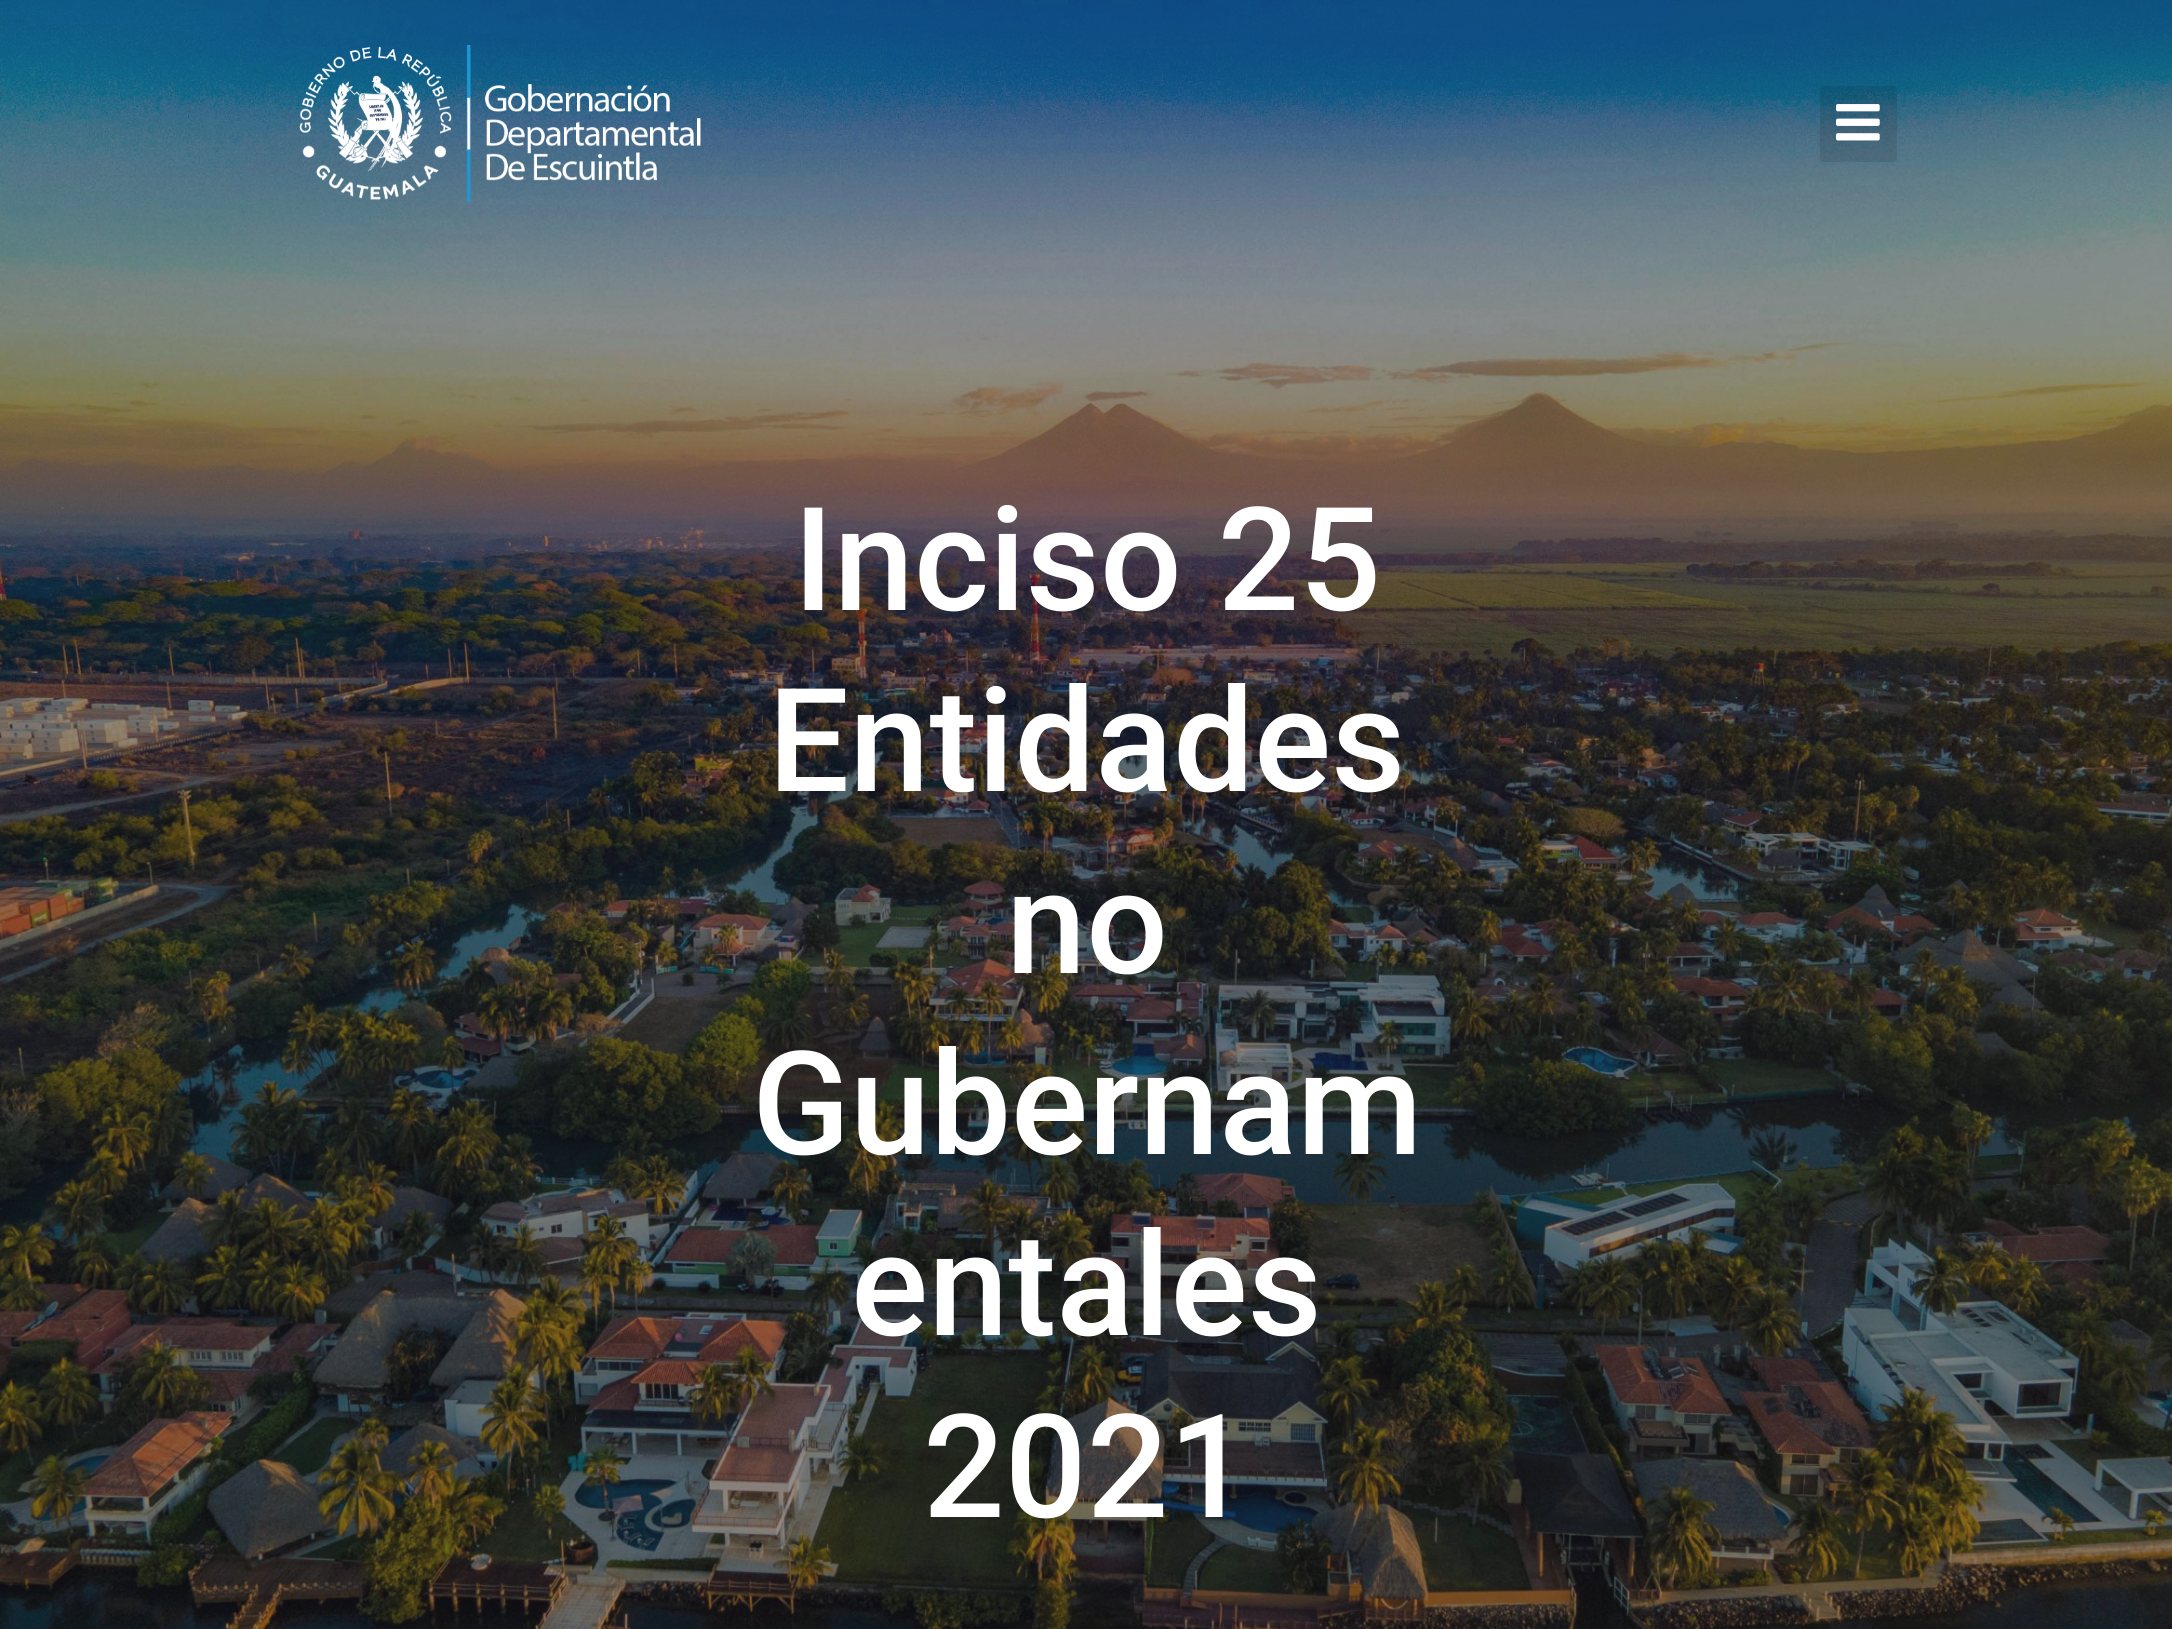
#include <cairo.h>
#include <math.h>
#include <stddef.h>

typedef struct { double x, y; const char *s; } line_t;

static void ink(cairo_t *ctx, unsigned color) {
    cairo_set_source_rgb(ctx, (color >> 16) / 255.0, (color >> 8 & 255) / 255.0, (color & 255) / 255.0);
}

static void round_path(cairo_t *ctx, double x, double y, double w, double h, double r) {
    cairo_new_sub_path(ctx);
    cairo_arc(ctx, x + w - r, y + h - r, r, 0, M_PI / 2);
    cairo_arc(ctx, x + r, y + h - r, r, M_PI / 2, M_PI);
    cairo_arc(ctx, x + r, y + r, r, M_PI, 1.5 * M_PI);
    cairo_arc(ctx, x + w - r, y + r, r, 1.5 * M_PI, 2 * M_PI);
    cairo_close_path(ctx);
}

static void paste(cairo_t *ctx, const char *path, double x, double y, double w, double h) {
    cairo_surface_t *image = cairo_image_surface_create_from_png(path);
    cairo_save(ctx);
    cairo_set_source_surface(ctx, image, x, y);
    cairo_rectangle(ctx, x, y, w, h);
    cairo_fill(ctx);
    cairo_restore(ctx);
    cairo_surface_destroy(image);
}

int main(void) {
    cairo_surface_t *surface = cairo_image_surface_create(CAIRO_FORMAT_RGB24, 2172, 1629);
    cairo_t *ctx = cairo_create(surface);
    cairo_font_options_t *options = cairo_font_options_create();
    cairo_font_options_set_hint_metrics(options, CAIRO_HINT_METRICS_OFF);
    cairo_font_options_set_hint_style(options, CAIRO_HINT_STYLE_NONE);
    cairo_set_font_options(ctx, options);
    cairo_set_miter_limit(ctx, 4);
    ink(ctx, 0xFFFFFF);
    cairo_paint(ctx);
    paste(ctx, "media/3.png", 0, 0, 2172, 1629);
    paste(ctx, "media/1.png", 299, 45, 402, 158);
    cairo_set_source_rgba(ctx, 0, 0, 0, 0.1);
    round_path(ctx, 1820, 86, 77, 76, 3);
    cairo_fill(ctx);
    paste(ctx, "media/2.png", 1836, 104, 44, 37);
    cairo_select_font_face(ctx, "Roboto Medium", CAIRO_FONT_SLANT_NORMAL, CAIRO_FONT_WEIGHT_NORMAL);
    cairo_set_font_size(ctx, 144);
    ink(ctx, 0xFFFFFF);
    {
        static const line_t items[] = {
            {793, 610, "Inciso 25"},
            {768, 791, "Entidades"},
            {1006, 973, "no"},
            {752, 1154, "Gubernam"},
            {851, 1335, "entales"},
            {923, 1517, "2021"},
        };
        for (size_t i = 0; i < sizeof items / sizeof *items; i++) {
            cairo_move_to(ctx, items[i].x, items[i].y);
            cairo_show_text(ctx, items[i].s);
        }
    }
    cairo_surface_write_to_png(surface, "image.png");
    cairo_font_options_destroy(options);
    cairo_destroy(ctx);
    cairo_surface_destroy(surface);
    return 0;
}
